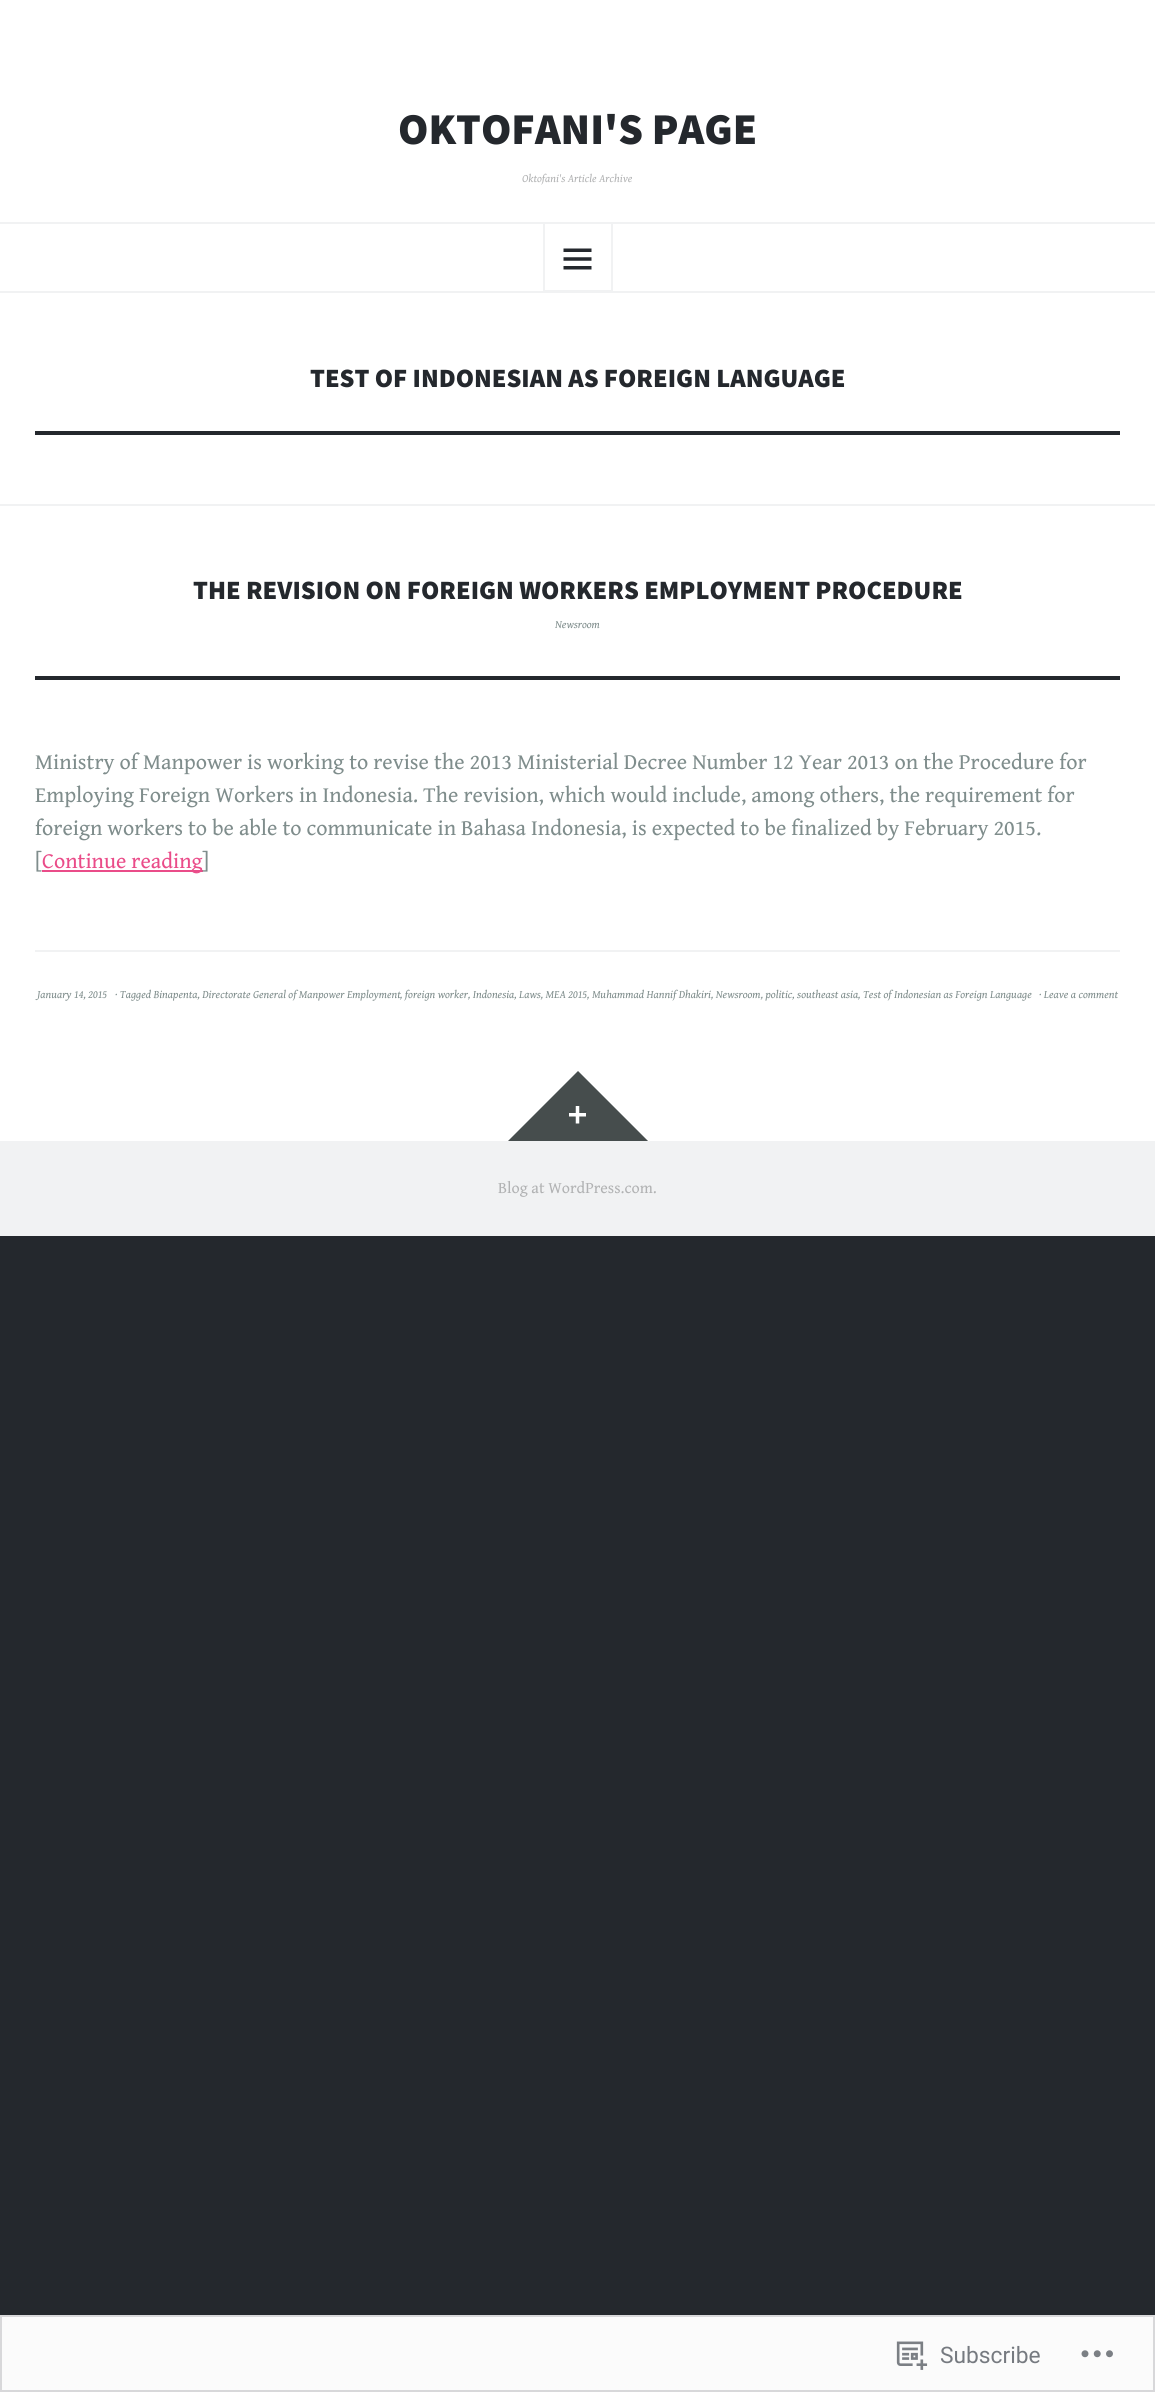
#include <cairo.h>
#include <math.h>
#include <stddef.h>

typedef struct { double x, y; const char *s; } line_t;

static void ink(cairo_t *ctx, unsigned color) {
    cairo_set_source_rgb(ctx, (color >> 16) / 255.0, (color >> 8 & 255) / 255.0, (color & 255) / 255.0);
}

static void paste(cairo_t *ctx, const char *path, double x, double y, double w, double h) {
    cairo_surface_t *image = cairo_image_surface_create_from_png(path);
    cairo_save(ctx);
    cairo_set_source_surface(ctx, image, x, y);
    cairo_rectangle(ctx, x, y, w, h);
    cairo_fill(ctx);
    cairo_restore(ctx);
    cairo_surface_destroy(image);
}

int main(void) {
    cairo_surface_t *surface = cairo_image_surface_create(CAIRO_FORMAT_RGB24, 1155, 2392);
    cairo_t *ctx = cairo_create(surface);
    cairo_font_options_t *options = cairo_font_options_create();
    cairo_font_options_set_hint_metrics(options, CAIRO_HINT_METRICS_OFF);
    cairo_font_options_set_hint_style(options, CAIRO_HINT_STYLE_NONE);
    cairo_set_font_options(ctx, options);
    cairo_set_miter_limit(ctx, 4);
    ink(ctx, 0x24282D);
    cairo_paint(ctx);
    ink(ctx, 0xFFFFFF);
    cairo_rectangle(ctx, 0, 0, 1155, 1141);
    cairo_fill(ctx);
    cairo_select_font_face(ctx, "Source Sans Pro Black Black", CAIRO_FONT_SLANT_NORMAL, CAIRO_FONT_WEIGHT_NORMAL);
    cairo_set_font_size(ctx, 44);
    ink(ctx, 0x24282D);
    cairo_move_to(ctx, 398, 144);
    cairo_show_text(ctx, "OKTOFANI'S PAGE");
    cairo_select_font_face(ctx, "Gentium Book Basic", CAIRO_FONT_SLANT_ITALIC, CAIRO_FONT_WEIGHT_NORMAL);
    cairo_set_font_size(ctx, 11.27);
    ink(ctx, 0xB1B2B3);
    cairo_move_to(ctx, 522, 182);
    cairo_show_text(ctx, "Oktofani's Article Archive");
    ink(ctx, 0xF1F2F3);
    cairo_rectangle(ctx, 0, 222, 1155, 2);
    cairo_fill(ctx);
    cairo_rectangle(ctx, 0, 291, 1155, 2);
    cairo_fill(ctx);
    cairo_rectangle(ctx, 544, 223, 68, 68);
    cairo_stroke(ctx);
    paste(ctx, "media/1.png", 563, 248, 29, 22);
    cairo_select_font_face(ctx, "Source Sans Pro Black Black", CAIRO_FONT_SLANT_NORMAL, CAIRO_FONT_WEIGHT_NORMAL);
    cairo_set_font_size(ctx, 26.45);
    ink(ctx, 0x24282D);
    cairo_move_to(ctx, 310, 387);
    cairo_show_text(ctx, "TEST OF INDONESIAN AS FOREIGN LANGUAGE");
    cairo_rectangle(ctx, 35, 431, 1085, 4);
    cairo_fill(ctx);
    ink(ctx, 0xF1F2F3);
    cairo_rectangle(ctx, 0, 504, 1155, 2);
    cairo_fill(ctx);
    ink(ctx, 0x24282D);
    cairo_move_to(ctx, 193, 599);
    cairo_show_text(ctx, "THE REVISION ON FOREIGN WORKERS EMPLOYMENT PROCEDURE");
    cairo_select_font_face(ctx, "Gentium Book Basic", CAIRO_FONT_SLANT_ITALIC, CAIRO_FONT_WEIGHT_NORMAL);
    cairo_set_font_size(ctx, 11.27);
    ink(ctx, 0x7F8D8C);
    cairo_move_to(ctx, 555, 628);
    cairo_show_text(ctx, "Newsroom");
    ink(ctx, 0x24282D);
    cairo_rectangle(ctx, 35, 676, 1085, 4);
    cairo_fill(ctx);
    cairo_select_font_face(ctx, "Gentium Book Basic", CAIRO_FONT_SLANT_NORMAL, CAIRO_FONT_WEIGHT_NORMAL);
    cairo_set_font_size(ctx, 22.05);
    ink(ctx, 0x7F8D8C);
    {
        static const line_t items[] = {
            {35, 769, "Ministry of Manpower is working to revise the 2013 Ministerial Decree Number 12 Year 2013 on the Procedure for"},
            {35, 802, "Employing Foreign Workers in Indonesia. The revision, which would include, among others, the requirement for"},
            {35, 835, "foreign workers to be able to communicate in Bahasa Indonesia, is expected to be finalized by February 2015."},
            {35, 868, "["},
        };
        for (size_t i = 0; i < sizeof items / sizeof *items; i++) {
            cairo_move_to(ctx, items[i].x, items[i].y);
            cairo_show_text(ctx, items[i].s);
        }
    }
    ink(ctx, 0xEA4C89);
    cairo_rectangle(ctx, 42, 870, 161, 2);
    cairo_fill(ctx);
    cairo_move_to(ctx, 42, 868);
    cairo_show_text(ctx, "Continue reading");
    ink(ctx, 0x7F8D8C);
    cairo_move_to(ctx, 202, 868);
    cairo_show_text(ctx, "]");
    ink(ctx, 0xF1F2F3);
    cairo_rectangle(ctx, 35, 950, 1085, 2);
    cairo_fill(ctx);
    cairo_select_font_face(ctx, "Gentium Book Basic", CAIRO_FONT_SLANT_ITALIC, CAIRO_FONT_WEIGHT_NORMAL);
    cairo_set_font_size(ctx, 11.27);
    ink(ctx, 0x7F8D8C);
    {
        static const line_t items[] = {
            {37, 998, "January 14, 2015"},
            {115, 998, "· Tagged Binapenta, Directorate General of Manpower Employment"},
            {400, 998, ", foreign worker, Indonesia, Laws, MEA 2015, Muhammad Hannif Dhakiri, Newsroom, politic, southeast asia, Test of Indonesian as Foreign Language"},
            {1039, 998, "· Leave a comment"},
        };
        for (size_t i = 0; i < sizeof items / sizeof *items; i++) {
            cairo_move_to(ctx, items[i].x, items[i].y);
            cairo_show_text(ctx, items[i].s);
        }
    }
    ink(ctx, 0x464D4D);
    cairo_new_path(ctx);
    cairo_move_to(ctx, 648, 1141);
    cairo_line_to(ctx, 508, 1141);
    cairo_line_to(ctx, 578, 1071);
    cairo_close_path(ctx);
    cairo_fill(ctx);
    paste(ctx, "media/2.png", 569, 1106, 17, 18);
    ink(ctx, 0xF1F2F3);
    cairo_rectangle(ctx, 0, 1141, 1155, 95);
    cairo_fill(ctx);
    cairo_select_font_face(ctx, "Gentium Book Basic", CAIRO_FONT_SLANT_NORMAL, CAIRO_FONT_WEIGHT_NORMAL);
    cairo_set_font_size(ctx, 16);
    ink(ctx, 0xB1B2B3);
    cairo_move_to(ctx, 498, 1193);
    cairo_show_text(ctx, "Blog at WordPress.com.");
    ink(ctx, 0xFBFBFB);
    cairo_rectangle(ctx, 1, 2316, 1153, 75);
    cairo_fill_preserve(ctx);
    ink(ctx, 0xD8D8DA);
    cairo_stroke(ctx);
    paste(ctx, "media/3.png", 896, 2341, 32, 29);
    cairo_select_font_face(ctx, "Roboto", CAIRO_FONT_SLANT_NORMAL, CAIRO_FONT_WEIGHT_NORMAL);
    cairo_set_font_size(ctx, 22.75);
    ink(ctx, 0x767A80);
    cairo_move_to(ctx, 940, 2363);
    cairo_show_text(ctx, "Subscribe");
    paste(ctx, "media/4.png", 1081, 2350, 32, 8);
    cairo_surface_write_to_png(surface, "image.png");
    cairo_font_options_destroy(options);
    cairo_destroy(ctx);
    cairo_surface_destroy(surface);
    return 0;
}
